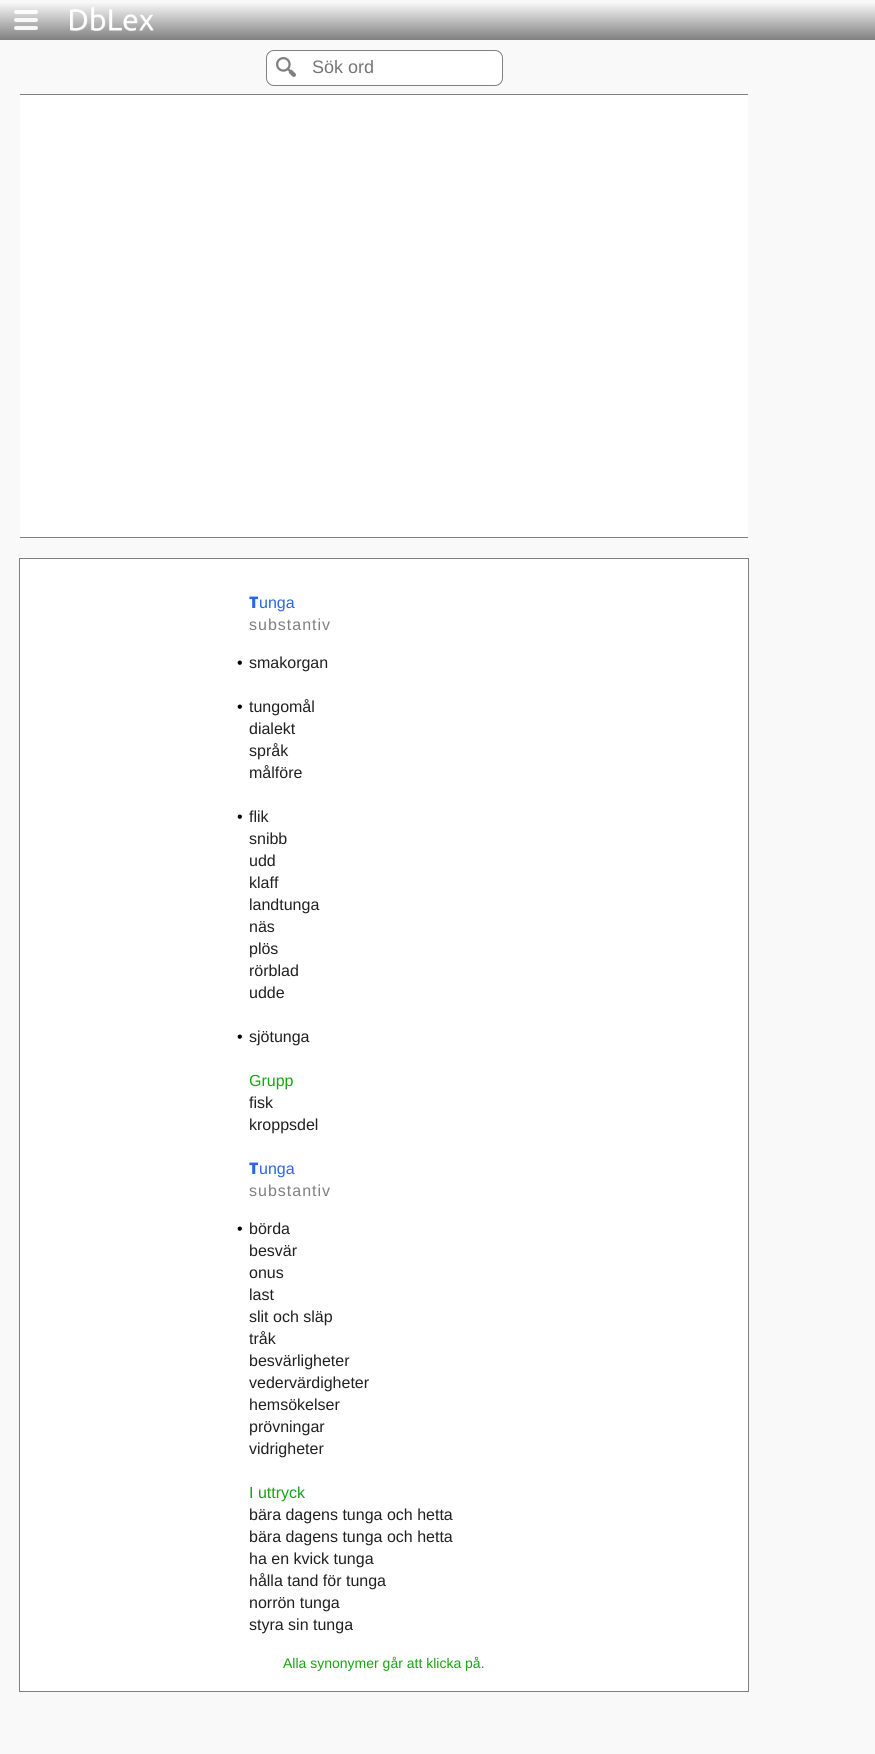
#include <cairo.h>
#include <math.h>
#include <stddef.h>

typedef struct { double x, y; const char *s; } line_t;
typedef struct { double x, y, w, h; unsigned color; } box_t;

static void ink(cairo_t *ctx, unsigned color) {
    cairo_set_source_rgb(ctx, (color >> 16) / 255.0, (color >> 8 & 255) / 255.0, (color & 255) / 255.0);
}

static void write_spaced(cairo_t *ctx, double x, double y, const char *s, double letter, double word) {
    cairo_move_to(ctx, x, y);
    while (*s) {
        char ch[5] = {0};
        int n = 0;
        do ch[n++] = *s++; while ((*s & 0xC0) == 0x80);
        cairo_show_text(ctx, ch);
        cairo_rel_move_to(ctx, letter + word * (*ch == ' '), 0);
    }
}

static void round_path(cairo_t *ctx, double x, double y, double w, double h, double r) {
    cairo_new_sub_path(ctx);
    cairo_arc(ctx, x + w - r, y + h - r, r, 0, M_PI / 2);
    cairo_arc(ctx, x + r, y + h - r, r, M_PI / 2, M_PI);
    cairo_arc(ctx, x + r, y + r, r, M_PI, 1.5 * M_PI);
    cairo_arc(ctx, x + w - r, y + r, r, 1.5 * M_PI, 2 * M_PI);
    cairo_close_path(ctx);
}

static void paste(cairo_t *ctx, const char *path, double x, double y, double w, double h) {
    cairo_surface_t *image = cairo_image_surface_create_from_png(path);
    cairo_save(ctx);
    cairo_set_source_surface(ctx, image, x, y);
    cairo_rectangle(ctx, x, y, w, h);
    cairo_fill(ctx);
    cairo_restore(ctx);
    cairo_surface_destroy(image);
}

int main(void) {
    cairo_surface_t *surface = cairo_image_surface_create(CAIRO_FORMAT_RGB24, 875, 1754);
    cairo_t *ctx = cairo_create(surface);
    cairo_font_options_t *options = cairo_font_options_create();
    cairo_font_options_set_hint_metrics(options, CAIRO_HINT_METRICS_OFF);
    cairo_font_options_set_hint_style(options, CAIRO_HINT_STYLE_NONE);
    cairo_set_font_options(ctx, options);
    cairo_set_miter_limit(ctx, 4);
    cairo_pattern_t *gradient;
    ink(ctx, 0xF9F9F9);
    cairo_paint(ctx);
    gradient = cairo_pattern_create_linear(0, 0, 0, 40);
    cairo_pattern_add_color_stop_rgba(gradient, 0.05, 0.976, 0.976, 0.976, 1);
    cairo_pattern_add_color_stop_rgba(gradient, 1, 0.502, 0.502, 0.502, 1);
    cairo_set_source(ctx, gradient);
    cairo_pattern_destroy(gradient);
    cairo_rectangle(ctx, 0, 3, 875, 37);
    cairo_fill(ctx);
    paste(ctx, "media/1.png", 14, 10, 24, 20);
    paste(ctx, "media/2.png", 70, 7, 84, 24);
    ink(ctx, 0xFFFFFF);
    round_path(ctx, 266.5, 50.5, 236, 35, 7.5);
    cairo_fill_preserve(ctx);
    ink(ctx, 0x808080);
    cairo_set_line_width(ctx, 1);
    cairo_stroke(ctx);
    paste(ctx, "media/3.png", 276, 57, 20, 20);
    cairo_select_font_face(ctx, "Liberation Sans", CAIRO_FONT_SLANT_NORMAL, CAIRO_FONT_WEIGHT_NORMAL);
    cairo_set_font_size(ctx, 18);
    ink(ctx, 0x757575);
    cairo_move_to(ctx, 312, 73);
    cairo_show_text(ctx, "Sök ord");
    {
        static const box_t items[] = {
            {20, 95, 728, 442, 0xFFFFFF},
            {20, 94, 728, 1, 0x808080},
            {20, 537, 728, 1, 0x808080},
        };
        for (size_t i = 0; i < sizeof items / sizeof *items; i++) {
            ink(ctx, items[i].color);
            cairo_rectangle(ctx, items[i].x, items[i].y, items[i].w, items[i].h);
            cairo_fill(ctx);
        }
    }
    ink(ctx, 0xFFFFFF);
    cairo_rectangle(ctx, 19.5, 558.5, 729, 1133);
    cairo_fill_preserve(ctx);
    ink(ctx, 0x808080);
    cairo_stroke(ctx);
    cairo_select_font_face(ctx, "Noto Sans Black", CAIRO_FONT_SLANT_NORMAL, CAIRO_FONT_WEIGHT_NORMAL);
    cairo_set_font_size(ctx, 16);
    ink(ctx, 0x2B65EC);
    cairo_move_to(ctx, 249, 608);
    cairo_show_text(ctx, "T");
    cairo_select_font_face(ctx, "Liberation Sans", CAIRO_FONT_SLANT_NORMAL, CAIRO_FONT_WEIGHT_NORMAL);
    cairo_move_to(ctx, 259, 608);
    cairo_show_text(ctx, "unga");
    ink(ctx, 0x808080);
    write_spaced(ctx, 249, 630, "substantiv", 1, 0);
    ink(ctx, 0x000000);
    cairo_move_to(ctx, 237, 668);
    cairo_show_text(ctx, "•");
    ink(ctx, 0x202020);
    cairo_move_to(ctx, 249, 668);
    cairo_show_text(ctx, "smakorgan");
    ink(ctx, 0x000000);
    cairo_move_to(ctx, 237, 712);
    cairo_show_text(ctx, "•");
    ink(ctx, 0x202020);
    {
        static const line_t items[] = {
            {249, 712, "tungomål"},
            {249, 734, "dialekt"},
            {249, 756, "språk"},
            {249, 778, "målföre"},
        };
        for (size_t i = 0; i < sizeof items / sizeof *items; i++) {
            cairo_move_to(ctx, items[i].x, items[i].y);
            cairo_show_text(ctx, items[i].s);
        }
    }
    ink(ctx, 0x000000);
    cairo_move_to(ctx, 237, 822);
    cairo_show_text(ctx, "•");
    ink(ctx, 0x202020);
    {
        static const line_t items[] = {
            {249, 822, "flik"},
            {249, 844, "snibb"},
            {249, 866, "udd"},
            {249, 888, "klaff"},
            {249, 910, "landtunga"},
            {249, 932, "näs"},
            {249, 954, "plös"},
            {249, 976, "rörblad"},
            {249, 998, "udde"},
        };
        for (size_t i = 0; i < sizeof items / sizeof *items; i++) {
            cairo_move_to(ctx, items[i].x, items[i].y);
            cairo_show_text(ctx, items[i].s);
        }
    }
    ink(ctx, 0x000000);
    cairo_move_to(ctx, 237, 1042);
    cairo_show_text(ctx, "•");
    ink(ctx, 0x202020);
    cairo_move_to(ctx, 249, 1042);
    cairo_show_text(ctx, "sjötunga");
    ink(ctx, 0x19A312);
    cairo_move_to(ctx, 249, 1086);
    cairo_show_text(ctx, "Grupp");
    ink(ctx, 0x202020);
    cairo_move_to(ctx, 249, 1108);
    cairo_show_text(ctx, "fisk");
    cairo_move_to(ctx, 249, 1130);
    cairo_show_text(ctx, "kroppsdel");
    cairo_select_font_face(ctx, "Noto Sans Black", CAIRO_FONT_SLANT_NORMAL, CAIRO_FONT_WEIGHT_NORMAL);
    ink(ctx, 0x2B65EC);
    cairo_move_to(ctx, 249, 1174);
    cairo_show_text(ctx, "T");
    cairo_select_font_face(ctx, "Liberation Sans", CAIRO_FONT_SLANT_NORMAL, CAIRO_FONT_WEIGHT_NORMAL);
    cairo_move_to(ctx, 259, 1174);
    cairo_show_text(ctx, "unga");
    ink(ctx, 0x808080);
    write_spaced(ctx, 249, 1196, "substantiv", 1, 0);
    ink(ctx, 0x000000);
    cairo_move_to(ctx, 237, 1234);
    cairo_show_text(ctx, "•");
    ink(ctx, 0x202020);
    {
        static const line_t items[] = {
            {249, 1234, "börda"},
            {249, 1256, "besvär"},
            {249, 1278, "onus"},
            {249, 1300, "last"},
            {249, 1322, "slit och släp"},
            {249, 1344, "tråk"},
            {249, 1366, "besvärligheter"},
            {249, 1388, "vedervärdigheter"},
            {249, 1410, "hemsökelser"},
            {249, 1432, "prövningar"},
            {249, 1454, "vidrigheter"},
        };
        for (size_t i = 0; i < sizeof items / sizeof *items; i++) {
            cairo_move_to(ctx, items[i].x, items[i].y);
            cairo_show_text(ctx, items[i].s);
        }
    }
    ink(ctx, 0x19A312);
    cairo_move_to(ctx, 249, 1498);
    cairo_show_text(ctx, "I uttryck");
    ink(ctx, 0x202020);
    {
        static const line_t items[] = {
            {249, 1520, "bära dagens tunga och hetta"},
            {249, 1542, "bära dagens tunga och hetta"},
            {249, 1564, "ha en kvick tunga"},
            {249, 1586, "hålla tand för tunga"},
            {249, 1608, "norrön tunga"},
            {249, 1630, "styra sin tunga"},
        };
        for (size_t i = 0; i < sizeof items / sizeof *items; i++) {
            cairo_move_to(ctx, items[i].x, items[i].y);
            cairo_show_text(ctx, items[i].s);
        }
    }
    cairo_set_font_size(ctx, 14);
    ink(ctx, 0x19A312);
    cairo_move_to(ctx, 283, 1668);
    cairo_show_text(ctx, "Alla synonymer går att klicka på.");
    cairo_surface_write_to_png(surface, "image.png");
    cairo_font_options_destroy(options);
    cairo_destroy(ctx);
    cairo_surface_destroy(surface);
    return 0;
}
